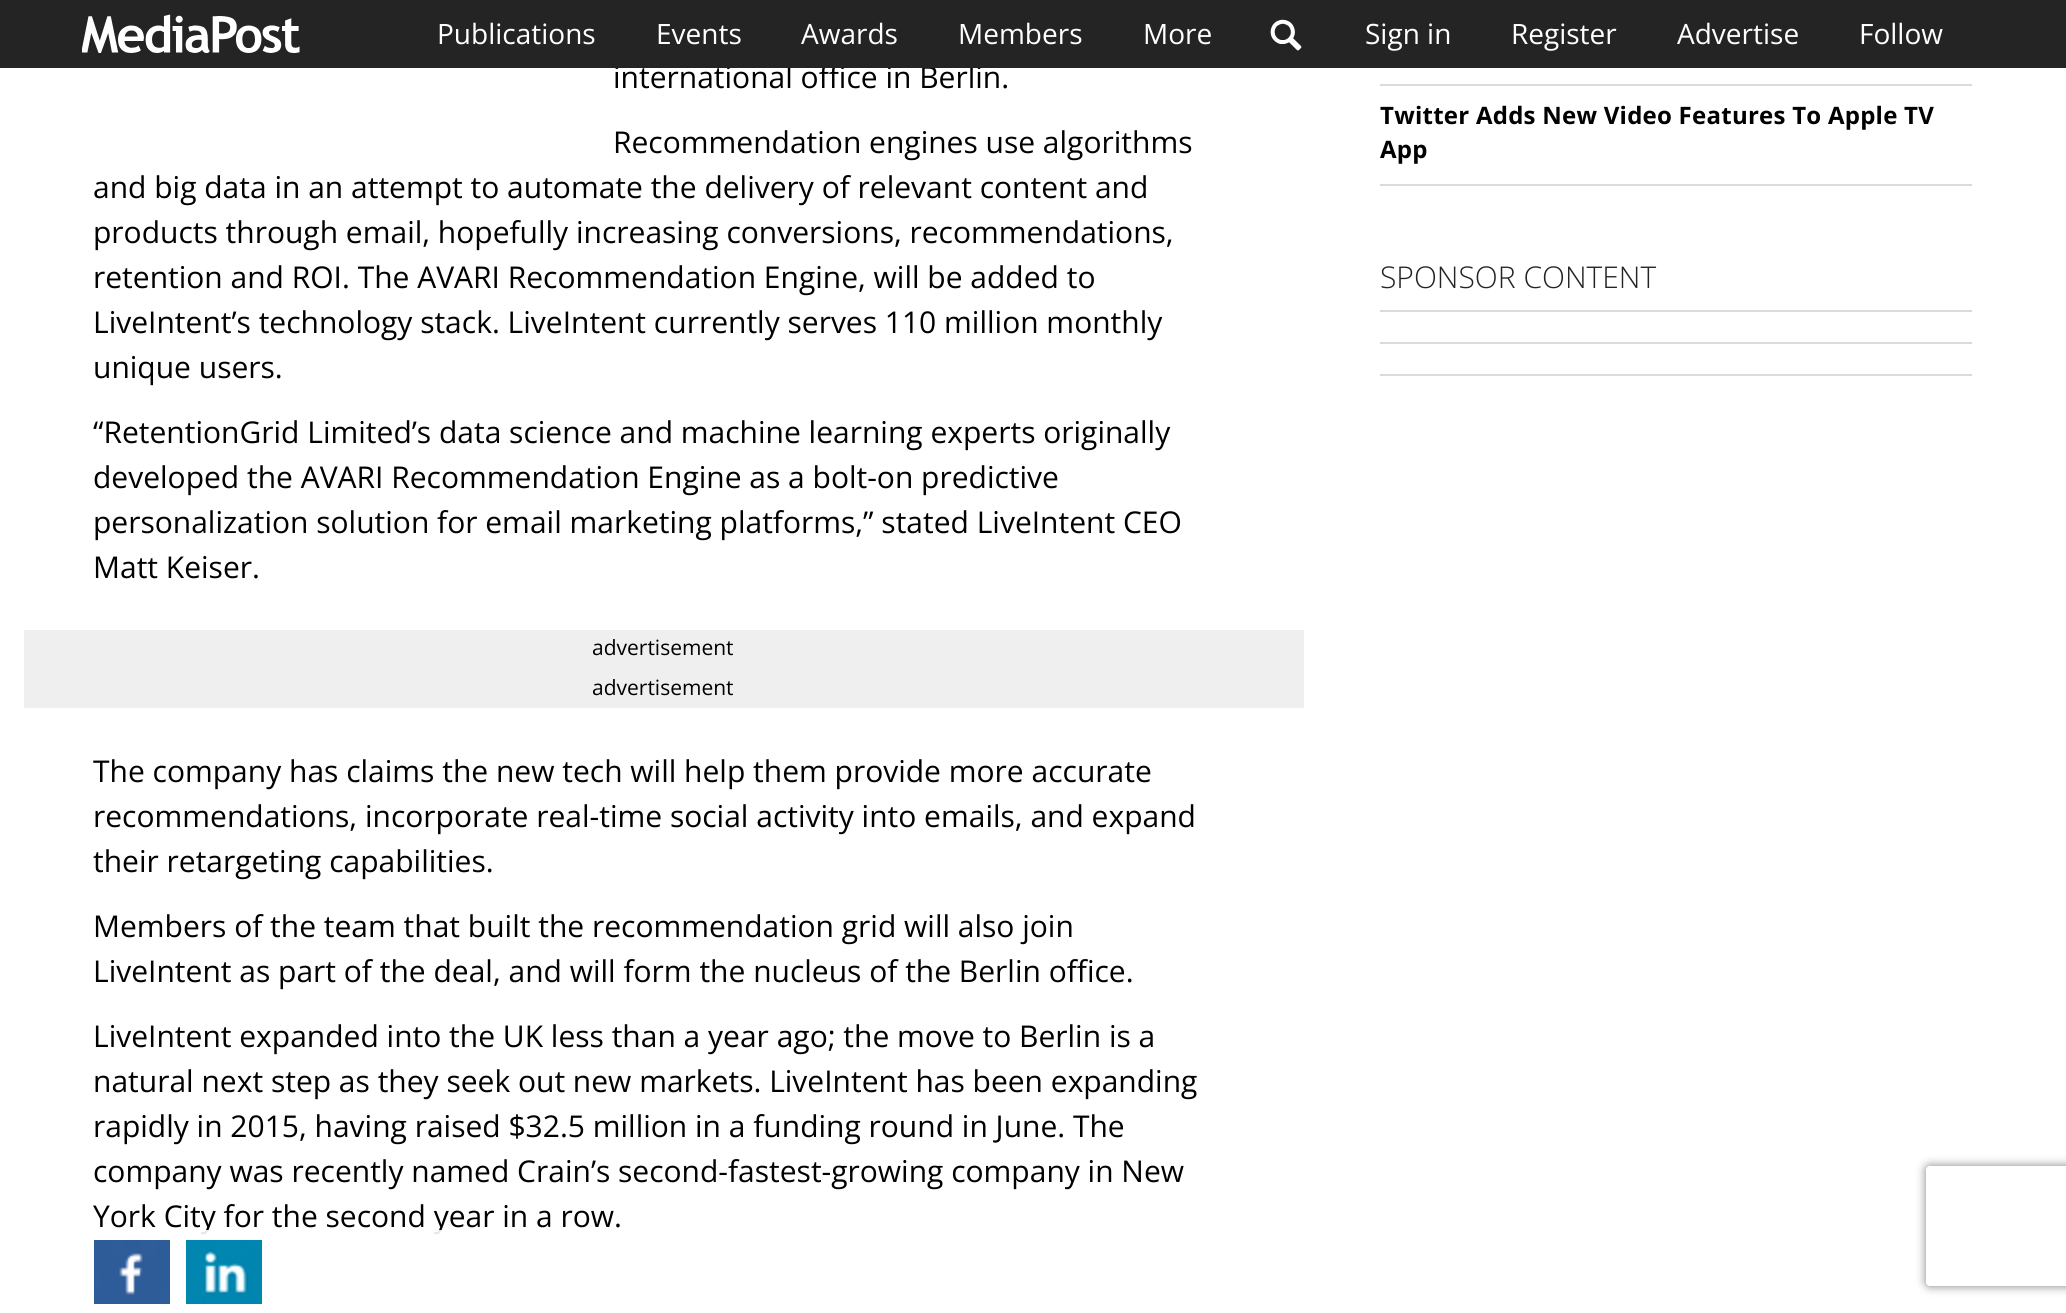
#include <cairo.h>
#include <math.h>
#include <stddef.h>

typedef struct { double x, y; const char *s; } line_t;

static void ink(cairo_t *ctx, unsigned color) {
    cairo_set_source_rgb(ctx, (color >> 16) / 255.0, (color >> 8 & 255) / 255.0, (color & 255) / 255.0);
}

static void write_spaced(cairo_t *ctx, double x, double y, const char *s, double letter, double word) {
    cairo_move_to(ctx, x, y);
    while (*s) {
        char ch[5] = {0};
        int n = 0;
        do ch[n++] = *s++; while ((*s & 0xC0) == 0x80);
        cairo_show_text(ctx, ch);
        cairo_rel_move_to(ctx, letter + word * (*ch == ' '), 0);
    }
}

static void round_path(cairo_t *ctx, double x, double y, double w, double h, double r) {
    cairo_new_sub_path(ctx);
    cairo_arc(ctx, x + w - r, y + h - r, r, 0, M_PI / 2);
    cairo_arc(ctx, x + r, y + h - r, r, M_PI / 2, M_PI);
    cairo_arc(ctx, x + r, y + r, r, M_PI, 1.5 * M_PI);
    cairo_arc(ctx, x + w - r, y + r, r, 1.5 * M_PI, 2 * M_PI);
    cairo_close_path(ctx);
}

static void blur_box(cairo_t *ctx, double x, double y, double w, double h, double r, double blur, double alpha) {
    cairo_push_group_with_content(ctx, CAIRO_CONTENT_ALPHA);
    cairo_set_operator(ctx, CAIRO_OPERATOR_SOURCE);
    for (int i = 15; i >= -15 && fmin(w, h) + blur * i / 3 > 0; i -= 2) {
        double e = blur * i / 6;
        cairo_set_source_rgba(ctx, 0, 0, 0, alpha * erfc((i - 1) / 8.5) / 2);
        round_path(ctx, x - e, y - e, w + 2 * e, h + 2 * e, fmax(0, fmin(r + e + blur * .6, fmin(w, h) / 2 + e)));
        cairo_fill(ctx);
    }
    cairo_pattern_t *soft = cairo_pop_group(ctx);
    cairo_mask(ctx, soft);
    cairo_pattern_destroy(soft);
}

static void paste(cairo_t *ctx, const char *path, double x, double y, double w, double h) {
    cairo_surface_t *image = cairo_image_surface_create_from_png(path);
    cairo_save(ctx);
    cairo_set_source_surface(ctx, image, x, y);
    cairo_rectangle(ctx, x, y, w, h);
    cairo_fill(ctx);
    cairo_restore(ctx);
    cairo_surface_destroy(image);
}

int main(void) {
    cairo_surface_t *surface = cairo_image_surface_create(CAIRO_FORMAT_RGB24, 2066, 1313);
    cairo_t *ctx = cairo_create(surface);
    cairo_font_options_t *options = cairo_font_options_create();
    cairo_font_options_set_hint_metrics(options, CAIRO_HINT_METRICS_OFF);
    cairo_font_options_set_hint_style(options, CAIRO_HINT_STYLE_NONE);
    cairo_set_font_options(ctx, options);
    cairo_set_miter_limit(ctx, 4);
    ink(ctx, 0xFFFFFF);
    cairo_paint(ctx);
    cairo_select_font_face(ctx, "Open Sans", CAIRO_FONT_SLANT_NORMAL, CAIRO_FONT_WEIGHT_NORMAL);
    cairo_set_font_size(ctx, 30);
    ink(ctx, 0x000000);
    cairo_move_to(ctx, 613, 88);
    cairo_show_text(ctx, "international office in Berlin.");
    ink(ctx, 0x242424);
    cairo_rectangle(ctx, 0, 0, 2066, 68);
    cairo_fill(ctx);
    paste(ctx, "media/1.png", 82, 14, 218, 39);
    cairo_set_font_size(ctx, 28);
    ink(ctx, 0xFFFFFF);
    {
        static const line_t items[] = {
            {437, 44, "Publications"},
            {656, 44, "Events"},
            {801, 44, "Awards"},
            {958, 44, "Members"},
            {1143, 44, "More"},
        };
        for (size_t i = 0; i < sizeof items / sizeof *items; i++) {
            cairo_move_to(ctx, items[i].x, items[i].y);
            cairo_show_text(ctx, items[i].s);
        }
    }
    paste(ctx, "media/2.png", 1270, 19, 32, 32);
    {
        static const line_t items[] = {
            {1365, 44, "Sign in"},
            {1511, 44, "Register"},
            {1677, 44, "Advertise"},
            {1859, 44, "Follow"},
        };
        for (size_t i = 0; i < sizeof items / sizeof *items; i++) {
            cairo_move_to(ctx, items[i].x, items[i].y);
            cairo_show_text(ctx, items[i].s);
        }
    }
    cairo_set_font_size(ctx, 30);
    ink(ctx, 0x000000);
    {
        static const line_t items[] = {
            {613, 153, "Recommendation engines use algorithms"},
            {93, 198, "and big data in an attempt to automate the delivery of relevant content and"},
            {93, 243, "products through email, hopefully increasing conversions, recommendations,"},
            {93, 288, "retention and ROI. The AVARI Recommendation Engine, will be added to"},
            {93, 333, "LiveIntent’s technology stack. LiveIntent currently serves 110 million monthly"},
            {93, 378, "unique users."},
            {93, 443, "“RetentionGrid Limited’s data science and machine learning experts originally"},
            {93, 488, "developed the AVARI Recommendation Engine as a bolt-on predictive"},
            {93, 533, "personalization solution for email marketing platforms,” stated LiveIntent CEO"},
            {93, 578, "Matt Keiser."},
        };
        for (size_t i = 0; i < sizeof items / sizeof *items; i++) {
            cairo_move_to(ctx, items[i].x, items[i].y);
            cairo_show_text(ctx, items[i].s);
        }
    }
    ink(ctx, 0xEFEFEF);
    cairo_rectangle(ctx, 24, 630, 1280, 78);
    cairo_fill(ctx);
    cairo_set_font_size(ctx, 21);
    ink(ctx, 0x000000);
    cairo_move_to(ctx, 592, 655);
    cairo_show_text(ctx, "advertisement");
    cairo_move_to(ctx, 592, 695);
    cairo_show_text(ctx, "advertisement");
    cairo_set_font_size(ctx, 30);
    {
        static const line_t items[] = {
            {93, 782, "The company has claims the new tech will help them provide more accurate"},
            {93, 827, "recommendations, incorporate real-time social activity into emails, and expand"},
            {93, 872, "their retargeting capabilities."},
            {93, 937, "Members of the team that built the recommendation grid will also join"},
            {93, 982, "LiveIntent as part of the deal, and will form the nucleus of the Berlin office."},
            {93, 1047, "LiveIntent expanded into the UK less than a year ago; the move to Berlin is a"},
            {93, 1092, "natural next step as they seek out new markets. LiveIntent has been expanding"},
            {93, 1137, "rapidly in 2015, having raised $32.5 million in a funding round in June. The"},
            {93, 1182, "company was recently named Crain’s second-fastest-growing company in New"},
            {93, 1227, "York City for the second year in a row."},
        };
        for (size_t i = 0; i < sizeof items / sizeof *items; i++) {
            cairo_move_to(ctx, items[i].x, items[i].y);
            cairo_show_text(ctx, items[i].s);
        }
    }
    cairo_set_source_rgba(ctx, 1, 1, 1, 0.9);
    cairo_rectangle(ctx, 201, 1230, 241, 5);
    cairo_fill(ctx);
    paste(ctx, "media/3.png", 94, 1240, 76, 64);
    paste(ctx, "media/4.png", 186, 1240, 76, 64);
    ink(ctx, 0xDBDBDB);
    cairo_rectangle(ctx, 1380, 84, 592, 2);
    cairo_fill(ctx);
    cairo_rectangle(ctx, 1380, 184, 592, 2);
    cairo_fill(ctx);
    cairo_select_font_face(ctx, "Open Sans", CAIRO_FONT_SLANT_NORMAL, CAIRO_FONT_WEIGHT_BOLD);
    cairo_set_font_size(ctx, 24);
    ink(ctx, 0x000000);
    write_spaced(ctx, 1380, 124, "Twitter Adds New Video Features To Apple TV", 0.25, 0);
    write_spaced(ctx, 1380, 158, "App", 0.25, 0);
    ink(ctx, 0xDBDBDB);
    cairo_rectangle(ctx, 1380, 310, 592, 2);
    cairo_fill(ctx);
    cairo_select_font_face(ctx, "Open Sans Light", CAIRO_FONT_SLANT_NORMAL, CAIRO_FONT_WEIGHT_NORMAL);
    cairo_set_font_size(ctx, 30);
    ink(ctx, 0x242424);
    cairo_move_to(ctx, 1380, 288);
    cairo_show_text(ctx, "SPONSOR CONTENT");
    ink(ctx, 0xDBDBDB);
    cairo_rectangle(ctx, 1380, 342, 592, 2);
    cairo_fill(ctx);
    cairo_rectangle(ctx, 1380, 374, 592, 2);
    cairo_fill(ctx);
    cairo_save(ctx);
    cairo_set_fill_rule(ctx, CAIRO_FILL_RULE_EVEN_ODD);
    cairo_new_path(ctx);
    cairo_move_to(ctx, 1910, 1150);
    cairo_line_to(ctx, 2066, 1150);
    cairo_line_to(ctx, 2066, 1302);
    cairo_line_to(ctx, 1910, 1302);
    cairo_close_path(ctx);
    cairo_move_to(ctx, 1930, 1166);
    cairo_line_to(ctx, 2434, 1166);
    cairo_curve_to(ctx, 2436, 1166, 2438, 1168, 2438, 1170);
    cairo_line_to(ctx, 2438, 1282);
    cairo_curve_to(ctx, 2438, 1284, 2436, 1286, 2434, 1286);
    cairo_line_to(ctx, 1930, 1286);
    cairo_curve_to(ctx, 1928, 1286, 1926, 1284, 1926, 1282);
    cairo_line_to(ctx, 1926, 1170);
    cairo_curve_to(ctx, 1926, 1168, 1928, 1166, 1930, 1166);
    cairo_close_path(ctx);
    cairo_clip(ctx);
    ink(ctx, 0x808080);
    blur_box(ctx, 1926, 1166, 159, 120, 4, 5, 1);
    cairo_restore(ctx);
    cairo_surface_write_to_png(surface, "image.png");
    cairo_font_options_destroy(options);
    cairo_destroy(ctx);
    cairo_surface_destroy(surface);
    return 0;
}
